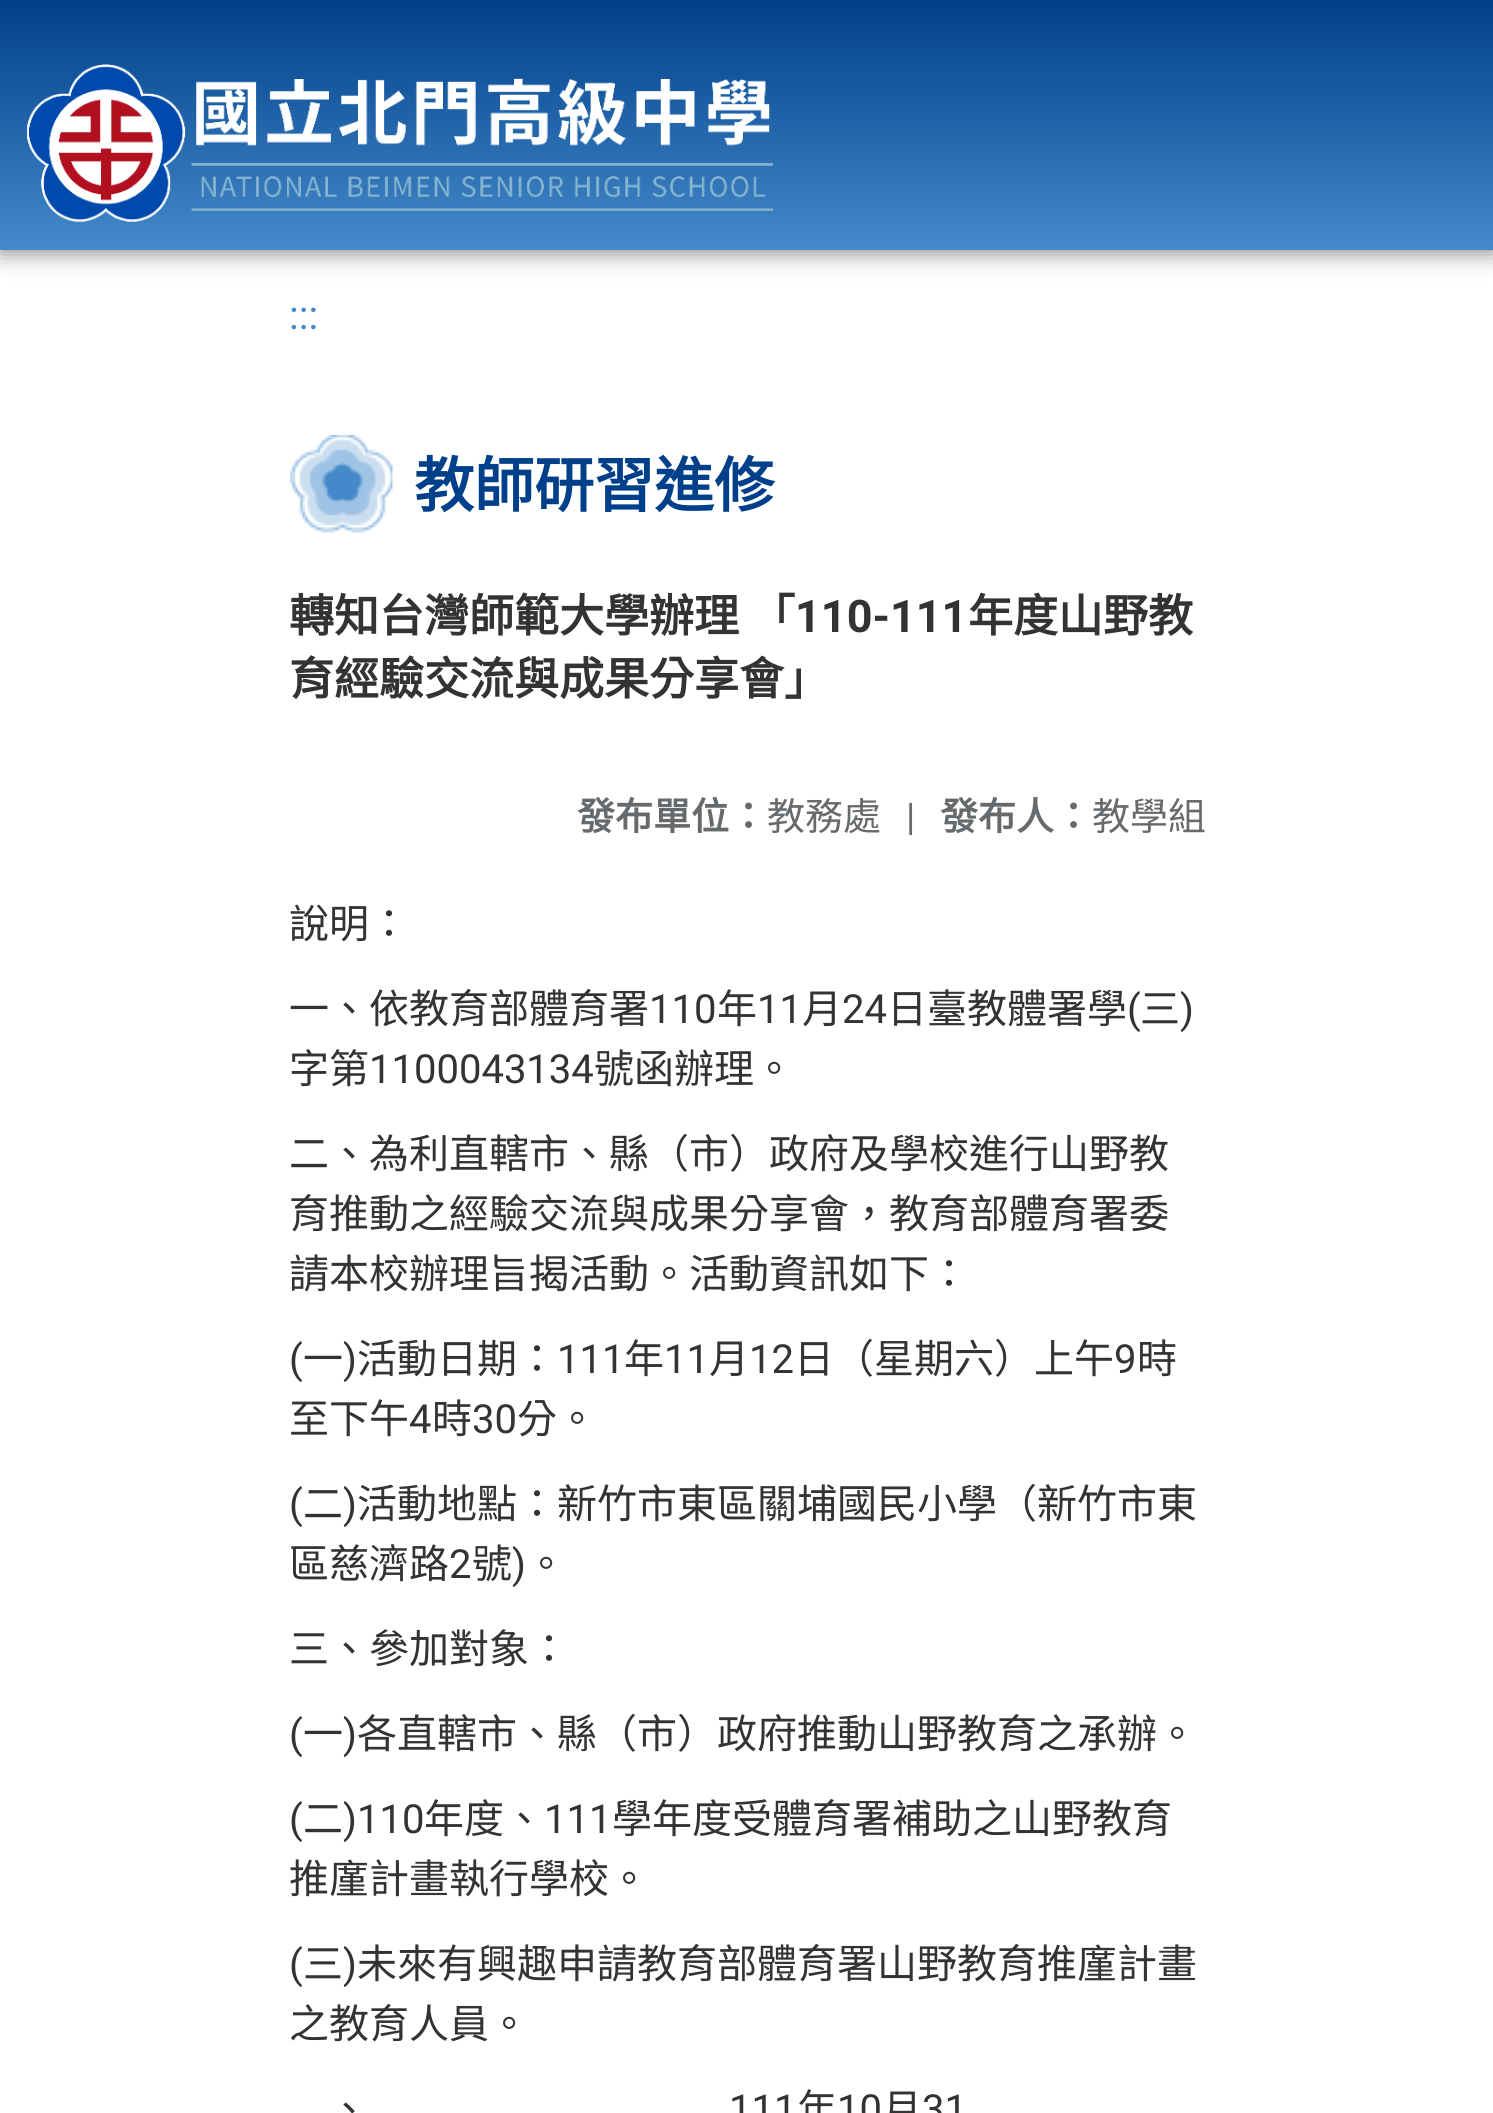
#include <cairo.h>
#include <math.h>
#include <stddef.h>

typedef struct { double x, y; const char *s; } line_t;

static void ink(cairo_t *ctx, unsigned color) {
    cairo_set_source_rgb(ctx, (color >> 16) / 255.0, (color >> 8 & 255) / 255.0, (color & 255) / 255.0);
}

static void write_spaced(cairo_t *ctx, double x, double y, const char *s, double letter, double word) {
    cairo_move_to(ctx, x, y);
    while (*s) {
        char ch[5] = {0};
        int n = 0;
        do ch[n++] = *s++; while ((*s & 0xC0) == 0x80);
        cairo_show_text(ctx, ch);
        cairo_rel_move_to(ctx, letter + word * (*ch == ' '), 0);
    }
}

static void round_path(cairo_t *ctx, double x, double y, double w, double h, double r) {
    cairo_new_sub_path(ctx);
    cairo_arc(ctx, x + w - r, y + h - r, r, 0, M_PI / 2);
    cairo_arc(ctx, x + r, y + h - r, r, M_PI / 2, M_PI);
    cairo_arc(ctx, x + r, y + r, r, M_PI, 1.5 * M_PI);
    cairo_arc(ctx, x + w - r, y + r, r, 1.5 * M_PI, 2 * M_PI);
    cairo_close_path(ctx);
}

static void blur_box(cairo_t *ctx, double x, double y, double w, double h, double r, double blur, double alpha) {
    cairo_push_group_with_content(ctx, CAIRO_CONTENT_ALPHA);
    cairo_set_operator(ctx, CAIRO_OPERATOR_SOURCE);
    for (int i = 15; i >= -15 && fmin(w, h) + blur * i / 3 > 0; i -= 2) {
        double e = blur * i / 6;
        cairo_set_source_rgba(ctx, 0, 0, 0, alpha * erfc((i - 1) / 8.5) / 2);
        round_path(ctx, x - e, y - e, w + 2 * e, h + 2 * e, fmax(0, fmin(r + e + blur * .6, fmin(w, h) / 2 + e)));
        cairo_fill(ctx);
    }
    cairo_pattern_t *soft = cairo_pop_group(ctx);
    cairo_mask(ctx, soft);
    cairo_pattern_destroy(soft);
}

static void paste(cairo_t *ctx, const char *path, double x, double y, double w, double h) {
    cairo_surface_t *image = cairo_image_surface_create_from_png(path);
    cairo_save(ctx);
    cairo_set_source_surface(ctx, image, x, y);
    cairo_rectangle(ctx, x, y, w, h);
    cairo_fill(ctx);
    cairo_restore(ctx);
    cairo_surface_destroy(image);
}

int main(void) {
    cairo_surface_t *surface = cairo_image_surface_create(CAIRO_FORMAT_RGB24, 1493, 2113);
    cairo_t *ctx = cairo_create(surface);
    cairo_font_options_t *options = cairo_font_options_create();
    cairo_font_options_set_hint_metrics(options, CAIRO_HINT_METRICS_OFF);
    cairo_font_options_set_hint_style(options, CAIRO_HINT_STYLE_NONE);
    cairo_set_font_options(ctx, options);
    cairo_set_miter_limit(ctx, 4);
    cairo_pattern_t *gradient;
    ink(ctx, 0xFFFFFF);
    cairo_paint(ctx);
    ink(ctx, 0x6D6D6D);
    blur_box(ctx, 0, 0, 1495, 250, 0, 12.5, 1);
    gradient = cairo_pattern_create_linear(748, 0, 748, 250);
    cairo_pattern_add_color_stop_rgba(gradient, 0, 0, 0.251, 0.541, 1);
    cairo_pattern_add_color_stop_rgba(gradient, 1, 0.267, 0.541, 0.792, 1);
    cairo_set_source(ctx, gradient);
    cairo_pattern_destroy(gradient);
    cairo_rectangle(ctx, 0, 0, 1493, 250);
    cairo_fill(ctx);
    paste(ctx, "media/1.png", 27, 64, 746, 158);
    cairo_select_font_face(ctx, "Roboto", CAIRO_FONT_SLANT_NORMAL, CAIRO_FONT_WEIGHT_NORMAL);
    cairo_set_font_size(ctx, 40);
    ink(ctx, 0x448ACA);
    cairo_move_to(ctx, 289, 329);
    cairo_show_text(ctx, ":::");
    paste(ctx, "media/2.png", 290, 435, 103, 98);
    cairo_select_font_face(ctx, "Noto Sans CJK TC", CAIRO_FONT_SLANT_NORMAL, CAIRO_FONT_WEIGHT_BOLD);
    cairo_set_font_size(ctx, 60);
    ink(ctx, 0x00408B);
    cairo_move_to(ctx, 414, 507);
    cairo_show_text(ctx, "教師研習進修");
    cairo_set_font_size(ctx, 45);
    ink(ctx, 0x333333);
    write_spaced(ctx, 289, 632, "轉知台灣師範大學辦理 「", 0, 1);
    cairo_select_font_face(ctx, "Roboto", CAIRO_FONT_SLANT_NORMAL, CAIRO_FONT_WEIGHT_BOLD);
    cairo_move_to(ctx, 795, 632);
    cairo_show_text(ctx, "110-111");
    cairo_select_font_face(ctx, "Noto Sans CJK TC", CAIRO_FONT_SLANT_NORMAL, CAIRO_FONT_WEIGHT_BOLD);
    cairo_move_to(ctx, 968, 632);
    cairo_show_text(ctx, "年度山野教");
    cairo_move_to(ctx, 289, 695);
    cairo_show_text(ctx, "育經驗交流與成果分享會」");
    cairo_set_font_size(ctx, 38);
    ink(ctx, 0x676A6C);
    cairo_move_to(ctx, 577, 830);
    cairo_show_text(ctx, "發布單位：");
    cairo_select_font_face(ctx, "Noto Sans CJK TC", CAIRO_FONT_SLANT_NORMAL, CAIRO_FONT_WEIGHT_NORMAL);
    cairo_move_to(ctx, 767, 830);
    cairo_show_text(ctx, "教務處");
    cairo_select_font_face(ctx, "Roboto", CAIRO_FONT_SLANT_NORMAL, CAIRO_FONT_WEIGHT_NORMAL);
    cairo_move_to(ctx, 906, 830);
    cairo_show_text(ctx, "|");
    cairo_select_font_face(ctx, "Noto Sans CJK TC", CAIRO_FONT_SLANT_NORMAL, CAIRO_FONT_WEIGHT_BOLD);
    cairo_move_to(ctx, 940, 830);
    cairo_show_text(ctx, "發布人：");
    cairo_select_font_face(ctx, "Noto Sans CJK TC", CAIRO_FONT_SLANT_NORMAL, CAIRO_FONT_WEIGHT_NORMAL);
    cairo_move_to(ctx, 1092, 830);
    cairo_show_text(ctx, "教學組");
    cairo_set_font_size(ctx, 40);
    ink(ctx, 0x333333);
    cairo_move_to(ctx, 289, 938);
    cairo_show_text(ctx, "說明：");
    cairo_move_to(ctx, 289, 1023);
    cairo_show_text(ctx, "一、依教育部體育署");
    cairo_select_font_face(ctx, "Roboto", CAIRO_FONT_SLANT_NORMAL, CAIRO_FONT_WEIGHT_NORMAL);
    cairo_move_to(ctx, 649, 1023);
    cairo_show_text(ctx, "110");
    cairo_select_font_face(ctx, "Noto Sans CJK TC", CAIRO_FONT_SLANT_NORMAL, CAIRO_FONT_WEIGHT_NORMAL);
    cairo_move_to(ctx, 717, 1023);
    cairo_show_text(ctx, "年");
    cairo_select_font_face(ctx, "Roboto", CAIRO_FONT_SLANT_NORMAL, CAIRO_FONT_WEIGHT_NORMAL);
    cairo_move_to(ctx, 757, 1023);
    cairo_show_text(ctx, "11");
    cairo_select_font_face(ctx, "Noto Sans CJK TC", CAIRO_FONT_SLANT_NORMAL, CAIRO_FONT_WEIGHT_NORMAL);
    cairo_move_to(ctx, 802, 1023);
    cairo_show_text(ctx, "月");
    cairo_select_font_face(ctx, "Roboto", CAIRO_FONT_SLANT_NORMAL, CAIRO_FONT_WEIGHT_NORMAL);
    cairo_move_to(ctx, 842, 1023);
    cairo_show_text(ctx, "24");
    cairo_select_font_face(ctx, "Noto Sans CJK TC", CAIRO_FONT_SLANT_NORMAL, CAIRO_FONT_WEIGHT_NORMAL);
    cairo_move_to(ctx, 887, 1023);
    cairo_show_text(ctx, "日臺教體署學");
    cairo_select_font_face(ctx, "Roboto", CAIRO_FONT_SLANT_NORMAL, CAIRO_FONT_WEIGHT_NORMAL);
    cairo_move_to(ctx, 1127, 1023);
    cairo_show_text(ctx, "(");
    cairo_select_font_face(ctx, "Noto Sans CJK TC", CAIRO_FONT_SLANT_NORMAL, CAIRO_FONT_WEIGHT_NORMAL);
    cairo_move_to(ctx, 1140, 1023);
    cairo_show_text(ctx, "三");
    cairo_select_font_face(ctx, "Roboto", CAIRO_FONT_SLANT_NORMAL, CAIRO_FONT_WEIGHT_NORMAL);
    cairo_move_to(ctx, 1180, 1023);
    cairo_show_text(ctx, ")");
    cairo_select_font_face(ctx, "Noto Sans CJK TC", CAIRO_FONT_SLANT_NORMAL, CAIRO_FONT_WEIGHT_NORMAL);
    cairo_move_to(ctx, 289, 1083);
    cairo_show_text(ctx, "字第");
    cairo_select_font_face(ctx, "Roboto", CAIRO_FONT_SLANT_NORMAL, CAIRO_FONT_WEIGHT_NORMAL);
    cairo_move_to(ctx, 369, 1083);
    cairo_show_text(ctx, "1100043134");
    cairo_select_font_face(ctx, "Noto Sans CJK TC", CAIRO_FONT_SLANT_NORMAL, CAIRO_FONT_WEIGHT_NORMAL);
    {
        static const line_t items[] = {
            {594, 1083, "號函辦理。"},
            {289, 1168, "二、為利直轄市、縣（市）政府及學校進行山野教"},
            {289, 1228, "育推動之經驗交流與成果分享會，教育部體育署委"},
            {289, 1288, "請本校辦理旨揭活動。活動資訊如下："},
        };
        for (size_t i = 0; i < sizeof items / sizeof *items; i++) {
            cairo_move_to(ctx, items[i].x, items[i].y);
            cairo_show_text(ctx, items[i].s);
        }
    }
    cairo_select_font_face(ctx, "Roboto", CAIRO_FONT_SLANT_NORMAL, CAIRO_FONT_WEIGHT_NORMAL);
    cairo_move_to(ctx, 289, 1373);
    cairo_show_text(ctx, "(");
    cairo_select_font_face(ctx, "Noto Sans CJK TC", CAIRO_FONT_SLANT_NORMAL, CAIRO_FONT_WEIGHT_NORMAL);
    cairo_move_to(ctx, 303, 1373);
    cairo_show_text(ctx, "一");
    cairo_select_font_face(ctx, "Roboto", CAIRO_FONT_SLANT_NORMAL, CAIRO_FONT_WEIGHT_NORMAL);
    cairo_move_to(ctx, 343, 1373);
    cairo_show_text(ctx, ")");
    cairo_select_font_face(ctx, "Noto Sans CJK TC", CAIRO_FONT_SLANT_NORMAL, CAIRO_FONT_WEIGHT_NORMAL);
    cairo_move_to(ctx, 357, 1373);
    cairo_show_text(ctx, "活動日期：");
    cairo_select_font_face(ctx, "Roboto", CAIRO_FONT_SLANT_NORMAL, CAIRO_FONT_WEIGHT_NORMAL);
    cairo_move_to(ctx, 557, 1373);
    cairo_show_text(ctx, "111");
    cairo_select_font_face(ctx, "Noto Sans CJK TC", CAIRO_FONT_SLANT_NORMAL, CAIRO_FONT_WEIGHT_NORMAL);
    cairo_move_to(ctx, 624, 1373);
    cairo_show_text(ctx, "年");
    cairo_select_font_face(ctx, "Roboto", CAIRO_FONT_SLANT_NORMAL, CAIRO_FONT_WEIGHT_NORMAL);
    cairo_move_to(ctx, 664, 1373);
    cairo_show_text(ctx, "11");
    cairo_select_font_face(ctx, "Noto Sans CJK TC", CAIRO_FONT_SLANT_NORMAL, CAIRO_FONT_WEIGHT_NORMAL);
    cairo_move_to(ctx, 709, 1373);
    cairo_show_text(ctx, "月");
    cairo_select_font_face(ctx, "Roboto", CAIRO_FONT_SLANT_NORMAL, CAIRO_FONT_WEIGHT_NORMAL);
    cairo_move_to(ctx, 749, 1373);
    cairo_show_text(ctx, "12");
    cairo_select_font_face(ctx, "Noto Sans CJK TC", CAIRO_FONT_SLANT_NORMAL, CAIRO_FONT_WEIGHT_NORMAL);
    cairo_move_to(ctx, 794, 1373);
    cairo_show_text(ctx, "日（星期六）上午");
    cairo_select_font_face(ctx, "Roboto", CAIRO_FONT_SLANT_NORMAL, CAIRO_FONT_WEIGHT_NORMAL);
    cairo_move_to(ctx, 1114, 1373);
    cairo_show_text(ctx, "9");
    cairo_select_font_face(ctx, "Noto Sans CJK TC", CAIRO_FONT_SLANT_NORMAL, CAIRO_FONT_WEIGHT_NORMAL);
    cairo_move_to(ctx, 1137, 1373);
    cairo_show_text(ctx, "時");
    cairo_move_to(ctx, 289, 1433);
    cairo_show_text(ctx, "至下午");
    cairo_select_font_face(ctx, "Roboto", CAIRO_FONT_SLANT_NORMAL, CAIRO_FONT_WEIGHT_NORMAL);
    cairo_move_to(ctx, 409, 1433);
    cairo_show_text(ctx, "4");
    cairo_select_font_face(ctx, "Noto Sans CJK TC", CAIRO_FONT_SLANT_NORMAL, CAIRO_FONT_WEIGHT_NORMAL);
    cairo_move_to(ctx, 432, 1433);
    cairo_show_text(ctx, "時");
    cairo_select_font_face(ctx, "Roboto", CAIRO_FONT_SLANT_NORMAL, CAIRO_FONT_WEIGHT_NORMAL);
    cairo_move_to(ctx, 472, 1433);
    cairo_show_text(ctx, "30");
    cairo_select_font_face(ctx, "Noto Sans CJK TC", CAIRO_FONT_SLANT_NORMAL, CAIRO_FONT_WEIGHT_NORMAL);
    cairo_move_to(ctx, 517, 1433);
    cairo_show_text(ctx, "分。");
    cairo_select_font_face(ctx, "Roboto", CAIRO_FONT_SLANT_NORMAL, CAIRO_FONT_WEIGHT_NORMAL);
    cairo_move_to(ctx, 289, 1518);
    cairo_show_text(ctx, "(");
    cairo_select_font_face(ctx, "Noto Sans CJK TC", CAIRO_FONT_SLANT_NORMAL, CAIRO_FONT_WEIGHT_NORMAL);
    cairo_move_to(ctx, 303, 1518);
    cairo_show_text(ctx, "二");
    cairo_select_font_face(ctx, "Roboto", CAIRO_FONT_SLANT_NORMAL, CAIRO_FONT_WEIGHT_NORMAL);
    cairo_move_to(ctx, 343, 1518);
    cairo_show_text(ctx, ")");
    cairo_select_font_face(ctx, "Noto Sans CJK TC", CAIRO_FONT_SLANT_NORMAL, CAIRO_FONT_WEIGHT_NORMAL);
    cairo_move_to(ctx, 357, 1518);
    cairo_show_text(ctx, "活動地點：新竹市東區關埔國民小學（新竹市東");
    cairo_move_to(ctx, 289, 1578);
    cairo_show_text(ctx, "區慈濟路");
    cairo_select_font_face(ctx, "Roboto", CAIRO_FONT_SLANT_NORMAL, CAIRO_FONT_WEIGHT_NORMAL);
    cairo_move_to(ctx, 449, 1578);
    cairo_show_text(ctx, "2");
    cairo_select_font_face(ctx, "Noto Sans CJK TC", CAIRO_FONT_SLANT_NORMAL, CAIRO_FONT_WEIGHT_NORMAL);
    cairo_move_to(ctx, 472, 1578);
    cairo_show_text(ctx, "號");
    cairo_select_font_face(ctx, "Roboto", CAIRO_FONT_SLANT_NORMAL, CAIRO_FONT_WEIGHT_NORMAL);
    cairo_move_to(ctx, 512, 1578);
    cairo_show_text(ctx, ")");
    cairo_select_font_face(ctx, "Noto Sans CJK TC", CAIRO_FONT_SLANT_NORMAL, CAIRO_FONT_WEIGHT_NORMAL);
    cairo_move_to(ctx, 526, 1578);
    cairo_show_text(ctx, "。");
    cairo_move_to(ctx, 289, 1663);
    cairo_show_text(ctx, "三、參加對象：");
    cairo_select_font_face(ctx, "Roboto", CAIRO_FONT_SLANT_NORMAL, CAIRO_FONT_WEIGHT_NORMAL);
    cairo_move_to(ctx, 289, 1748);
    cairo_show_text(ctx, "(");
    cairo_select_font_face(ctx, "Noto Sans CJK TC", CAIRO_FONT_SLANT_NORMAL, CAIRO_FONT_WEIGHT_NORMAL);
    cairo_move_to(ctx, 303, 1748);
    cairo_show_text(ctx, "一");
    cairo_select_font_face(ctx, "Roboto", CAIRO_FONT_SLANT_NORMAL, CAIRO_FONT_WEIGHT_NORMAL);
    cairo_move_to(ctx, 343, 1748);
    cairo_show_text(ctx, ")");
    cairo_select_font_face(ctx, "Noto Sans CJK TC", CAIRO_FONT_SLANT_NORMAL, CAIRO_FONT_WEIGHT_NORMAL);
    cairo_move_to(ctx, 357, 1748);
    cairo_show_text(ctx, "各直轄市、縣（市）政府推動山野教育之承辦。");
    cairo_select_font_face(ctx, "Roboto", CAIRO_FONT_SLANT_NORMAL, CAIRO_FONT_WEIGHT_NORMAL);
    cairo_move_to(ctx, 289, 1833);
    cairo_show_text(ctx, "(");
    cairo_select_font_face(ctx, "Noto Sans CJK TC", CAIRO_FONT_SLANT_NORMAL, CAIRO_FONT_WEIGHT_NORMAL);
    cairo_move_to(ctx, 303, 1833);
    cairo_show_text(ctx, "二");
    cairo_select_font_face(ctx, "Roboto", CAIRO_FONT_SLANT_NORMAL, CAIRO_FONT_WEIGHT_NORMAL);
    cairo_move_to(ctx, 343, 1833);
    cairo_show_text(ctx, ")110");
    cairo_select_font_face(ctx, "Noto Sans CJK TC", CAIRO_FONT_SLANT_NORMAL, CAIRO_FONT_WEIGHT_NORMAL);
    cairo_move_to(ctx, 424, 1833);
    cairo_show_text(ctx, "年度、");
    cairo_select_font_face(ctx, "Roboto", CAIRO_FONT_SLANT_NORMAL, CAIRO_FONT_WEIGHT_NORMAL);
    cairo_move_to(ctx, 544, 1833);
    cairo_show_text(ctx, "111");
    cairo_select_font_face(ctx, "Noto Sans CJK TC", CAIRO_FONT_SLANT_NORMAL, CAIRO_FONT_WEIGHT_NORMAL);
    cairo_move_to(ctx, 612, 1833);
    cairo_show_text(ctx, "學年度受體育署補助之山野教育");
    cairo_move_to(ctx, 289, 1893);
    cairo_show_text(ctx, "推廑計畫執行學校。");
    cairo_select_font_face(ctx, "Roboto", CAIRO_FONT_SLANT_NORMAL, CAIRO_FONT_WEIGHT_NORMAL);
    cairo_move_to(ctx, 289, 1978);
    cairo_show_text(ctx, "(");
    cairo_select_font_face(ctx, "Noto Sans CJK TC", CAIRO_FONT_SLANT_NORMAL, CAIRO_FONT_WEIGHT_NORMAL);
    cairo_move_to(ctx, 303, 1978);
    cairo_show_text(ctx, "三");
    cairo_select_font_face(ctx, "Roboto", CAIRO_FONT_SLANT_NORMAL, CAIRO_FONT_WEIGHT_NORMAL);
    cairo_move_to(ctx, 343, 1978);
    cairo_show_text(ctx, ")");
    cairo_select_font_face(ctx, "Noto Sans CJK TC", CAIRO_FONT_SLANT_NORMAL, CAIRO_FONT_WEIGHT_NORMAL);
    {
        static const line_t items[] = {
            {357, 1978, "未來有興趣申請教育部體育署山野教育推廑計畫"},
            {289, 2038, "之教育人員。"},
            {329, 2123, "、"},
        };
        for (size_t i = 0; i < sizeof items / sizeof *items; i++) {
            cairo_move_to(ctx, items[i].x, items[i].y);
            cairo_show_text(ctx, items[i].s);
        }
    }
    cairo_select_font_face(ctx, "Roboto", CAIRO_FONT_SLANT_NORMAL, CAIRO_FONT_WEIGHT_NORMAL);
    cairo_move_to(ctx, 729, 2123);
    cairo_show_text(ctx, "111");
    cairo_select_font_face(ctx, "Noto Sans CJK TC", CAIRO_FONT_SLANT_NORMAL, CAIRO_FONT_WEIGHT_NORMAL);
    cairo_move_to(ctx, 797, 2123);
    cairo_show_text(ctx, "年");
    cairo_select_font_face(ctx, "Roboto", CAIRO_FONT_SLANT_NORMAL, CAIRO_FONT_WEIGHT_NORMAL);
    cairo_move_to(ctx, 837, 2123);
    cairo_show_text(ctx, "10");
    cairo_select_font_face(ctx, "Noto Sans CJK TC", CAIRO_FONT_SLANT_NORMAL, CAIRO_FONT_WEIGHT_NORMAL);
    cairo_move_to(ctx, 882, 2123);
    cairo_show_text(ctx, "月");
    cairo_select_font_face(ctx, "Roboto", CAIRO_FONT_SLANT_NORMAL, CAIRO_FONT_WEIGHT_NORMAL);
    cairo_move_to(ctx, 922, 2123);
    cairo_show_text(ctx, "31");
    cairo_surface_write_to_png(surface, "image.png");
    cairo_font_options_destroy(options);
    cairo_destroy(ctx);
    cairo_surface_destroy(surface);
    return 0;
}
